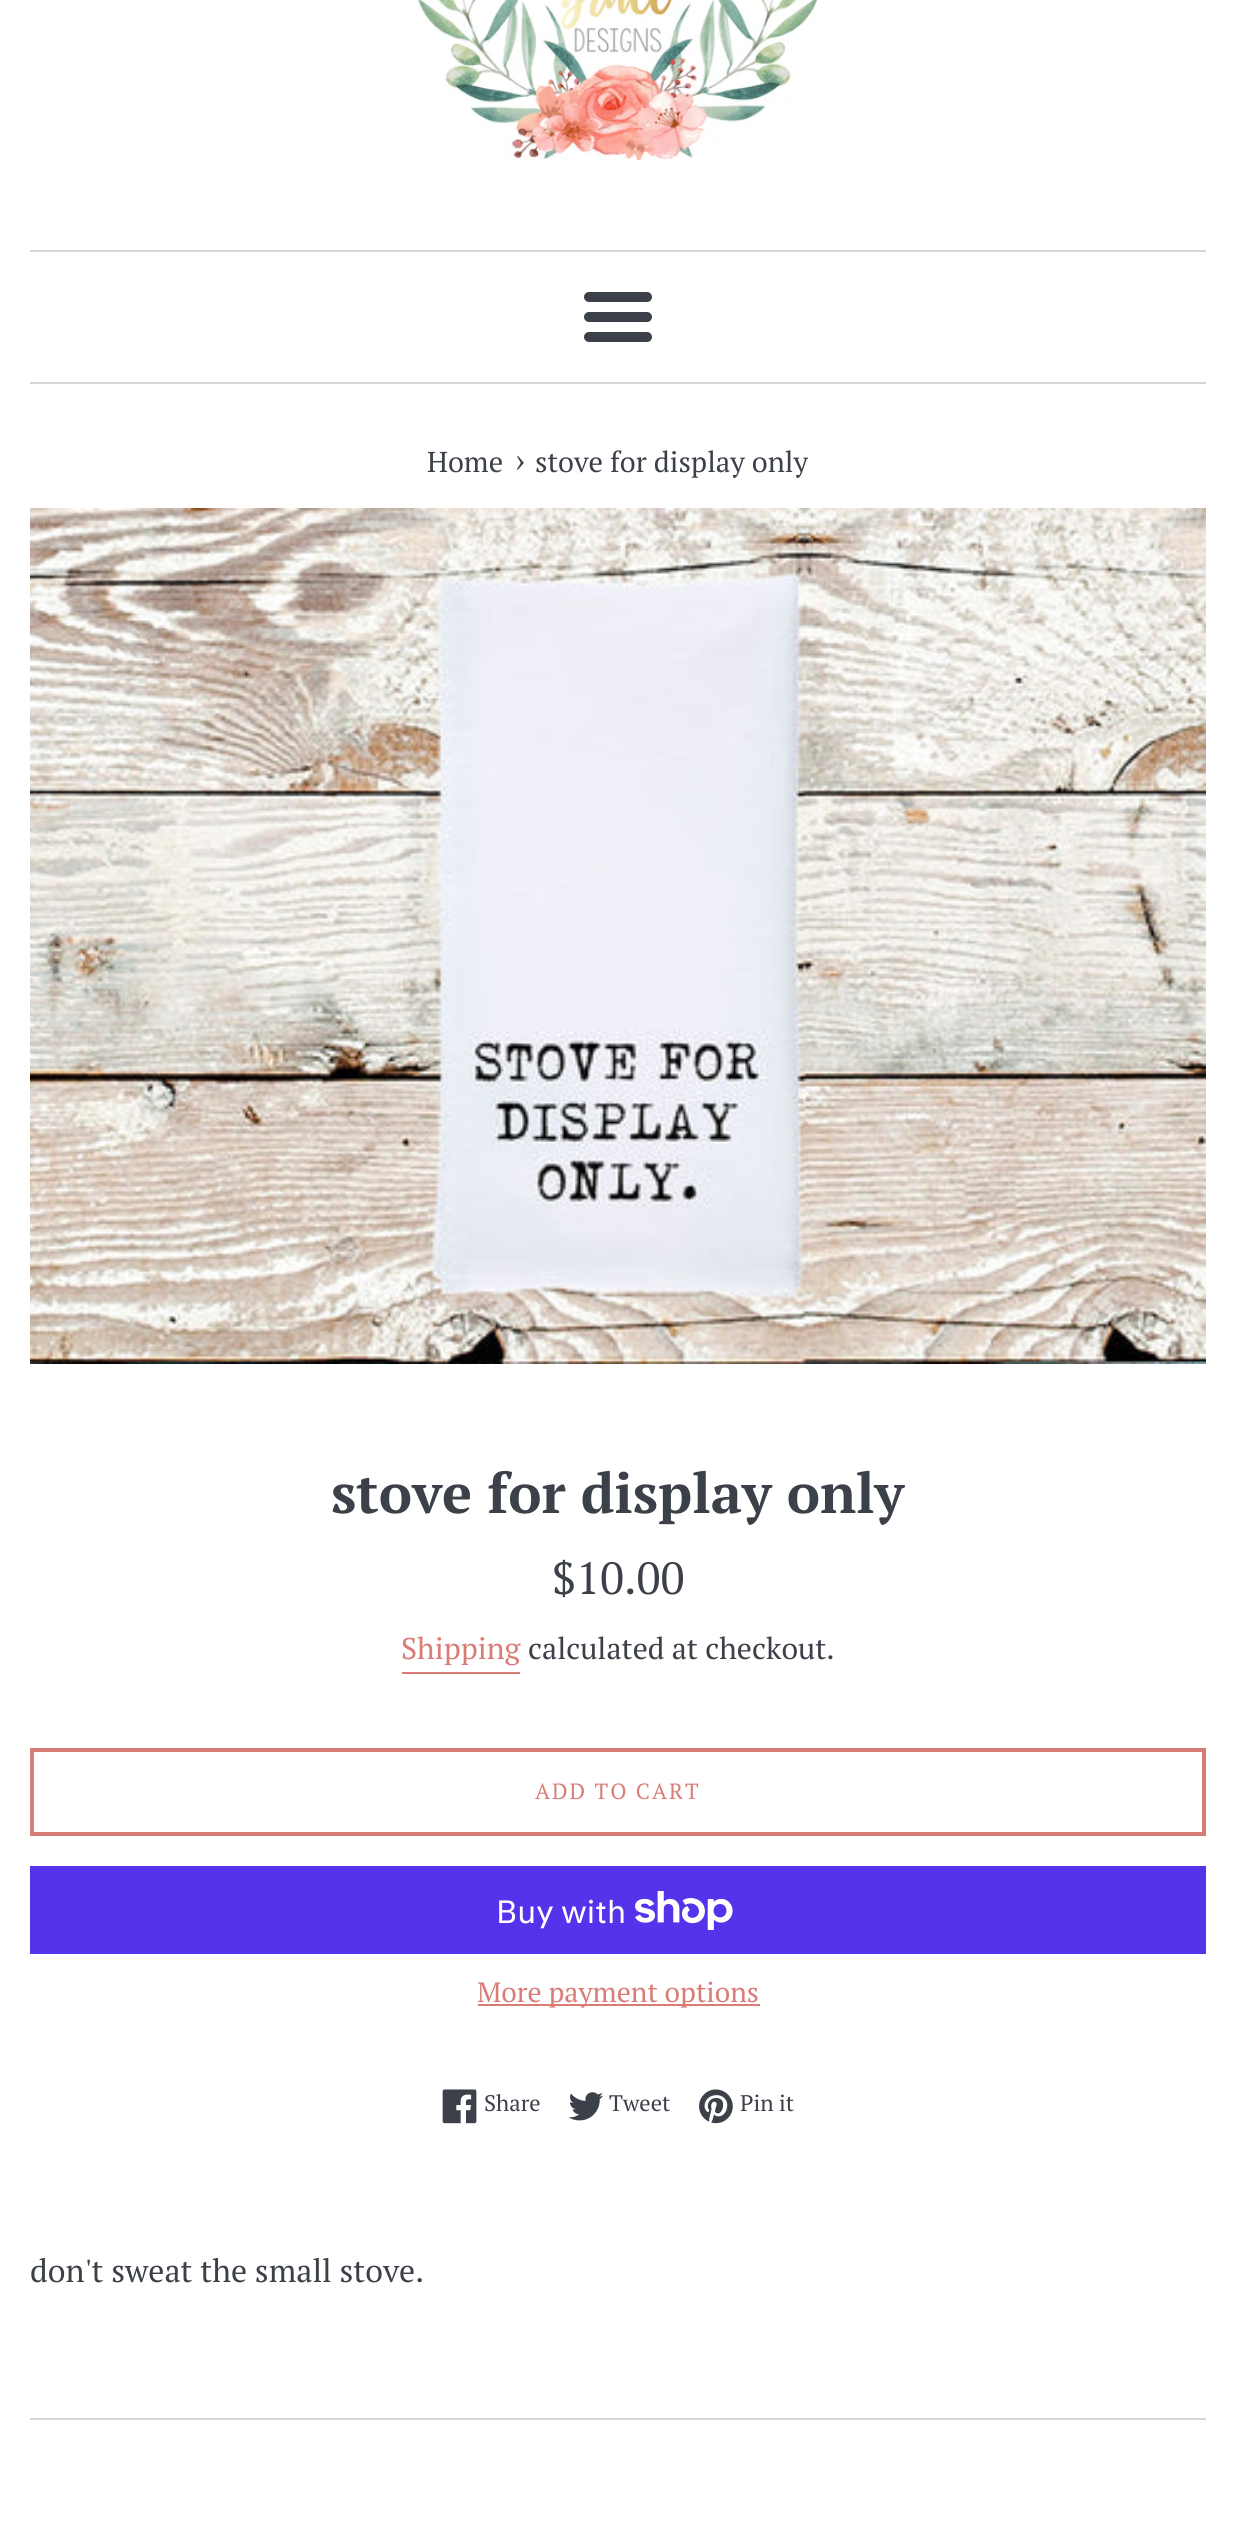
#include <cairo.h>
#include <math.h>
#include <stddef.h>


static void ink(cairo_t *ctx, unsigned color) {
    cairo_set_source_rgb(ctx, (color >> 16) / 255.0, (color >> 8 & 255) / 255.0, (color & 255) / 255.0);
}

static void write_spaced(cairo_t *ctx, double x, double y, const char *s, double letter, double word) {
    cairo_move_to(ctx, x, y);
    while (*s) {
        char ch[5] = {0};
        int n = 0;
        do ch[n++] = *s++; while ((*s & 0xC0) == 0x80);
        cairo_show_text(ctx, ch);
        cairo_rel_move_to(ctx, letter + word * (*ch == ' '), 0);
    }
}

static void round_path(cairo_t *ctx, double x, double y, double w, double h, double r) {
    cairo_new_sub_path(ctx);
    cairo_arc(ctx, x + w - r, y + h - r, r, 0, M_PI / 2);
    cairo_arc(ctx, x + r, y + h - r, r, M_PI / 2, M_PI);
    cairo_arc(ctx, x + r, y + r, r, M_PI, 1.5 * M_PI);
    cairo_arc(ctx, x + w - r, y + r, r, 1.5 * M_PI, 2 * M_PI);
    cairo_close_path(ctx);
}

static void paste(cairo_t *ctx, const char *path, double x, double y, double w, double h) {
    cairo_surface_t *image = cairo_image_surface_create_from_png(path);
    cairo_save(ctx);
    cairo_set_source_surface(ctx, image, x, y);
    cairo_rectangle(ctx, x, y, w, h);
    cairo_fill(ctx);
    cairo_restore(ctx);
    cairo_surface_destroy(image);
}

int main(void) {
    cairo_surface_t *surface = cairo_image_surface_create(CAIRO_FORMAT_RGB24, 1235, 2543);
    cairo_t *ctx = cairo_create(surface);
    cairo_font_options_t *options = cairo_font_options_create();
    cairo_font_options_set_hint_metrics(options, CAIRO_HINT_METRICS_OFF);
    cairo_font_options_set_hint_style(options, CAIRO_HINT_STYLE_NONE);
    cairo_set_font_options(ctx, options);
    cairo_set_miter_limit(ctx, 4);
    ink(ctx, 0xFFFFFF);
    cairo_paint(ctx);
    paste(ctx, "media/1.png", 418, 0, 400, 160);
    ink(ctx, 0xD7D8D2);
    cairo_rectangle(ctx, 30, 250, 1176, 2);
    cairo_fill(ctx);
    ink(ctx, 0x3C4049);
    round_path(ctx, 584, 292, 68, 10, 5);
    cairo_fill(ctx);
    round_path(ctx, 584, 312, 68, 10, 5);
    cairo_fill(ctx);
    round_path(ctx, 584, 332, 68, 10, 5);
    cairo_fill(ctx);
    ink(ctx, 0xD7D8D2);
    cairo_rectangle(ctx, 30, 382, 1176, 2);
    cairo_fill(ctx);
    cairo_select_font_face(ctx, "PT Serif", CAIRO_FONT_SLANT_NORMAL, CAIRO_FONT_WEIGHT_NORMAL);
    cairo_set_font_size(ctx, 28.75);
    ink(ctx, 0x3C4049);
    cairo_move_to(ctx, 427, 472);
    cairo_show_text(ctx, "Home");
    cairo_set_font_size(ctx, 35);
    cairo_move_to(ctx, 515, 472);
    cairo_show_text(ctx, "›");
    cairo_set_font_size(ctx, 28.75);
    cairo_move_to(ctx, 535, 472);
    cairo_show_text(ctx, "stove for display only");
    paste(ctx, "media/2.png", 30, 508, 1176, 856);
    cairo_select_font_face(ctx, "PT Serif", CAIRO_FONT_SLANT_NORMAL, CAIRO_FONT_WEIGHT_BOLD);
    cairo_set_font_size(ctx, 56);
    cairo_move_to(ctx, 331, 1513);
    cairo_show_text(ctx, "stove for display only");
    cairo_select_font_face(ctx, "PT Serif", CAIRO_FONT_SLANT_NORMAL, CAIRO_FONT_WEIGHT_NORMAL);
    cairo_set_font_size(ctx, 45);
    cairo_move_to(ctx, 552, 1594);
    cairo_show_text(ctx, "$10.00");
    cairo_set_font_size(ctx, 30);
    ink(ctx, 0xD97C76);
    cairo_move_to(ctx, 401, 1659);
    cairo_show_text(ctx, "Shipping");
    cairo_rectangle(ctx, 402, 1672, 118, 2);
    cairo_fill(ctx);
    ink(ctx, 0x3C4049);
    cairo_move_to(ctx, 528, 1659);
    cairo_show_text(ctx, "calculated at checkout.");
    cairo_rectangle(ctx, 32, 1750, 1172, 84);
    ink(ctx, 0xD97C76);
    cairo_set_line_width(ctx, 4);
    cairo_stroke(ctx);
    cairo_set_font_size(ctx, 22);
    write_spaced(ctx, 535, 1799, "ADD TO CART", 2, 0);
    ink(ctx, 0x5433EB);
    cairo_rectangle(ctx, 30, 1866, 1176, 88);
    cairo_fill(ctx);
    cairo_select_font_face(ctx, "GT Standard", CAIRO_FONT_SLANT_NORMAL, CAIRO_FONT_WEIGHT_NORMAL);
    cairo_set_font_size(ctx, 32);
    ink(ctx, 0xFFFFFF);
    cairo_move_to(ctx, 496, 1923);
    cairo_show_text(ctx, "Buy with");
    paste(ctx, "media/3.png", 635, 1891, 98, 39);
    ink(ctx, 0xD97C76);
    cairo_rectangle(ctx, 478, 2004, 282, 2);
    cairo_fill(ctx);
    cairo_select_font_face(ctx, "PT Serif", CAIRO_FONT_SLANT_NORMAL, CAIRO_FONT_WEIGHT_NORMAL);
    cairo_set_font_size(ctx, 28);
    cairo_move_to(ctx, 477, 2002);
    cairo_show_text(ctx, "More payment options");
    paste(ctx, "media/4.png", 442, 2089, 35, 35);
    cairo_set_font_size(ctx, 22.5);
    ink(ctx, 0x3C4049);
    cairo_move_to(ctx, 484, 2111);
    cairo_show_text(ctx, "Share");
    paste(ctx, "media/5.png", 568, 2092, 35, 29);
    cairo_move_to(ctx, 609, 2111);
    cairo_show_text(ctx, "Tweet");
    paste(ctx, "media/6.png", 699, 2089, 34, 35);
    cairo_move_to(ctx, 740, 2111);
    cairo_show_text(ctx, "Pin it");
    cairo_set_font_size(ctx, 32);
    cairo_move_to(ctx, 30, 2282);
    cairo_show_text(ctx, "don't sweat the small stove.");
    ink(ctx, 0xD7D8D2);
    cairo_rectangle(ctx, 30, 2418, 1176, 2);
    cairo_fill(ctx);
    cairo_surface_write_to_png(surface, "image.png");
    cairo_font_options_destroy(options);
    cairo_destroy(ctx);
    cairo_surface_destroy(surface);
    return 0;
}
